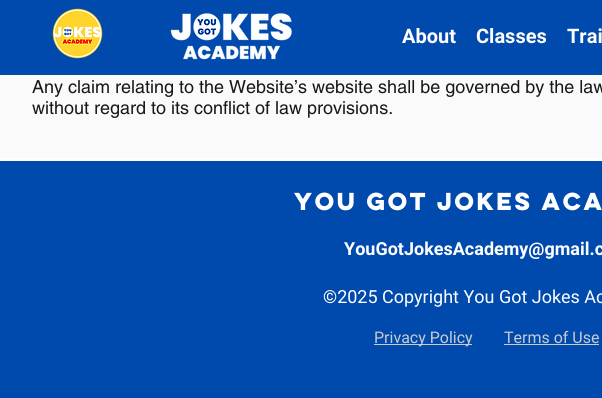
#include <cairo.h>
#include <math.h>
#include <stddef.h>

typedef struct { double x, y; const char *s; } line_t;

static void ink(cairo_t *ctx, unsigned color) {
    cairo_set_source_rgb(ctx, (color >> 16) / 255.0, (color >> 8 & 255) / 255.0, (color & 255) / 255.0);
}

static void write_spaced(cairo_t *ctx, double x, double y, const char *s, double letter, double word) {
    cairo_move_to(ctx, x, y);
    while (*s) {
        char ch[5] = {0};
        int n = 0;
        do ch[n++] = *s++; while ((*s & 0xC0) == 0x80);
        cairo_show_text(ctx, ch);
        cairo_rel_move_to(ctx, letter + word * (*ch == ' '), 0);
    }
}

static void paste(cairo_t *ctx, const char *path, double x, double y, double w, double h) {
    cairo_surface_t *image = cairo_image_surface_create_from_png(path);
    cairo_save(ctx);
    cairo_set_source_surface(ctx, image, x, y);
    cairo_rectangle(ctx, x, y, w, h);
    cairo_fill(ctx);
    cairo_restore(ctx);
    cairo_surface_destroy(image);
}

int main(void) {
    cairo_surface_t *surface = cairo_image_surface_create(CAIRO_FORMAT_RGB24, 602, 398);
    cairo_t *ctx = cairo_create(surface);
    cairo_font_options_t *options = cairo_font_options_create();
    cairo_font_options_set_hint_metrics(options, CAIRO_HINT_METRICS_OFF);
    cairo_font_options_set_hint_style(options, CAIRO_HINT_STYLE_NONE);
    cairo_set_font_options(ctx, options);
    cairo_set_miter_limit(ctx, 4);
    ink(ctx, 0xFAFAFA);
    cairo_paint(ctx);
    ink(ctx, 0x004AAD);
    cairo_rectangle(ctx, 0, 0, 602, 75);
    cairo_fill(ctx);
    paste(ctx, "media/1.png", 52, 8, 51, 51);
    paste(ctx, "media/2.png", 170, 13, 122, 47);
    cairo_select_font_face(ctx, "Roboto", CAIRO_FONT_SLANT_NORMAL, CAIRO_FONT_WEIGHT_BOLD);
    cairo_set_font_size(ctx, 20);
    ink(ctx, 0xFFFFFF);
    {
        static const line_t items[] = {
            {402, 43, "About"},
            {476, 43, "Classes"},
            {567, 43, "Trai"},
        };
        for (size_t i = 0; i < sizeof items / sizeof *items; i++) {
            cairo_move_to(ctx, items[i].x, items[i].y);
            cairo_show_text(ctx, items[i].s);
        }
    }
    cairo_select_font_face(ctx, "helvetica", CAIRO_FONT_SLANT_NORMAL, CAIRO_FONT_WEIGHT_NORMAL);
    cairo_set_font_size(ctx, 18);
    ink(ctx, 0x181818);
    cairo_move_to(ctx, 32, 93);
    cairo_show_text(ctx, "Any claim relating to the Website’s website shall be governed by the law");
    cairo_move_to(ctx, 32, 114);
    cairo_show_text(ctx, "without regard to its conflict of law provisions.");
    ink(ctx, 0x004AAD);
    cairo_rectangle(ctx, 0, 161, 602, 237);
    cairo_fill(ctx);
    ink(ctx, 0xFFFFFF);
    cairo_rectangle(ctx, 0, 158, 602, 3);
    cairo_fill(ctx);
    cairo_select_font_face(ctx, "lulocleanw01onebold", CAIRO_FONT_SLANT_NORMAL, CAIRO_FONT_WEIGHT_BOLD);
    cairo_set_font_size(ctx, 22);
    write_spaced(ctx, 294, 210, "You Got Jokes Aca", -2.25, 0);
    cairo_select_font_face(ctx, "Roboto", CAIRO_FONT_SLANT_NORMAL, CAIRO_FONT_WEIGHT_BOLD);
    cairo_set_font_size(ctx, 18);
    cairo_move_to(ctx, 344, 255);
    cairo_show_text(ctx, "YouGotJokesAcademy@gmail.c");
    cairo_select_font_face(ctx, "Roboto", CAIRO_FONT_SLANT_NORMAL, CAIRO_FONT_WEIGHT_NORMAL);
    cairo_move_to(ctx, 323, 303);
    cairo_show_text(ctx, "©2025 Copyright You Got Jokes Ac");
    ink(ctx, 0xCCCCCC);
    cairo_rectangle(ctx, 374, 344, 98, 1);
    cairo_fill(ctx);
    cairo_set_font_size(ctx, 16);
    cairo_move_to(ctx, 374, 343);
    cairo_show_text(ctx, "Privacy Policy");
    cairo_move_to(ctx, 504, 343);
    cairo_show_text(ctx, "Terms of Use");
    cairo_rectangle(ctx, 504, 344, 95, 1);
    cairo_fill(ctx);
    cairo_surface_write_to_png(surface, "image.png");
    cairo_font_options_destroy(options);
    cairo_destroy(ctx);
    cairo_surface_destroy(surface);
    return 0;
}
